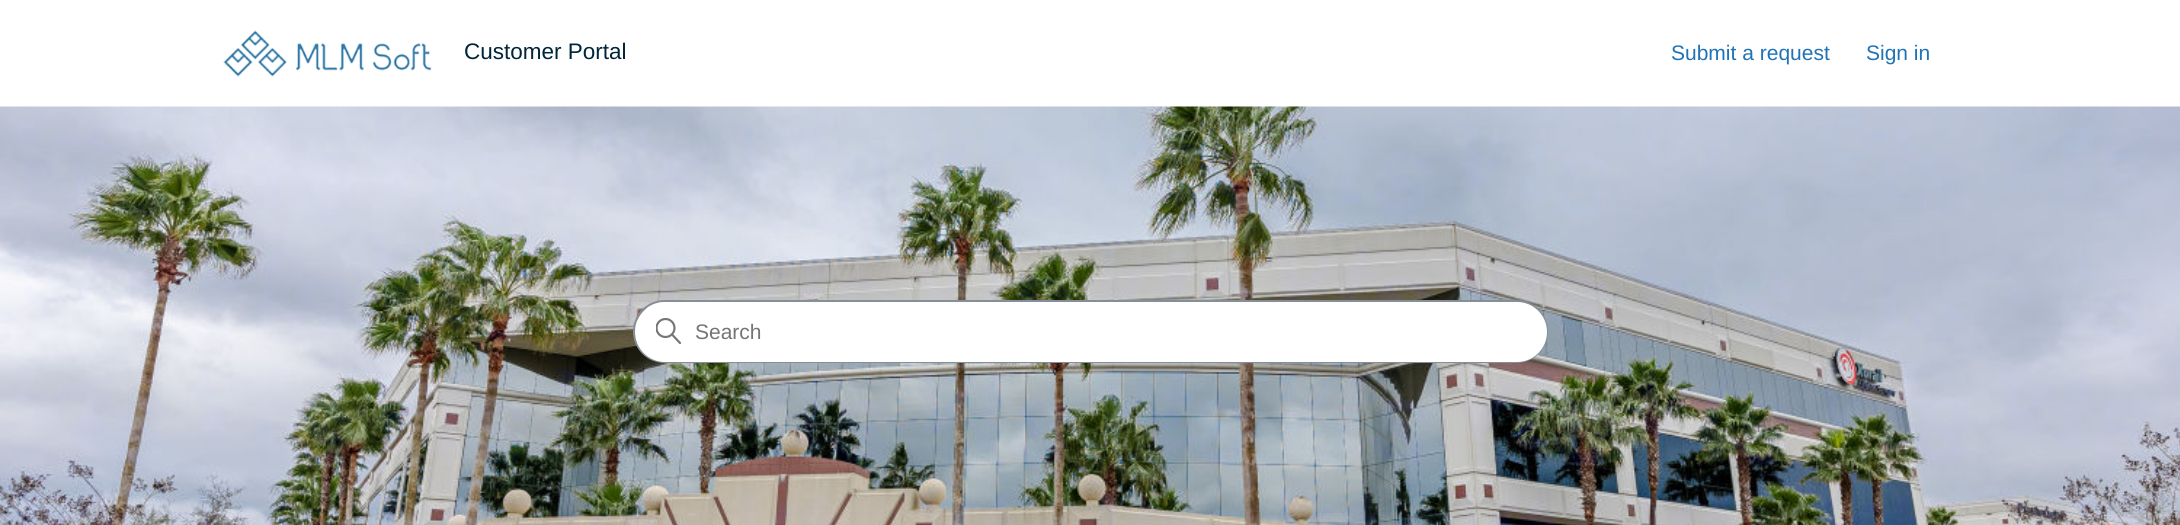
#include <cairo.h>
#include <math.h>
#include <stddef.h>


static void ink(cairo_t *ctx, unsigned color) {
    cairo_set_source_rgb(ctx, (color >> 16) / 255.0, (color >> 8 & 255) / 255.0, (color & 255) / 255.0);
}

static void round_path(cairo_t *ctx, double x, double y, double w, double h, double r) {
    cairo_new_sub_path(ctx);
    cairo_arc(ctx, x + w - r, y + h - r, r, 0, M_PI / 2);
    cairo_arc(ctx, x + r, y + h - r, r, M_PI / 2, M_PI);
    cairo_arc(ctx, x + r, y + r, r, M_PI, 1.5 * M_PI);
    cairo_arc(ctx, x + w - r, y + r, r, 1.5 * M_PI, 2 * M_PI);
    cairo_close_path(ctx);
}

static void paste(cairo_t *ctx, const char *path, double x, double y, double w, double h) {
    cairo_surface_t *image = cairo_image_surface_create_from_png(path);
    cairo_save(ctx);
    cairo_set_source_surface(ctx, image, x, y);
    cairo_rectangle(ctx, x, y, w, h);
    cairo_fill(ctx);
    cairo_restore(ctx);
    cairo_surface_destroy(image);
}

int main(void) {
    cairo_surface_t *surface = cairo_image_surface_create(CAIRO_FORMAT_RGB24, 2180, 525);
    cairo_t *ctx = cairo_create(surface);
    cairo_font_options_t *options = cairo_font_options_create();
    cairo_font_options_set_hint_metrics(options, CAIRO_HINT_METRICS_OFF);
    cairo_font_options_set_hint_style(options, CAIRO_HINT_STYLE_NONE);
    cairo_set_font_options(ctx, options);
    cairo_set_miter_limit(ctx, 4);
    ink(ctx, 0xFFFFFF);
    cairo_paint(ctx);
    paste(ctx, "media/1.png", 223, 30, 209, 47);
    cairo_select_font_face(ctx, "Liberation Sans", CAIRO_FONT_SLANT_NORMAL, CAIRO_FONT_WEIGHT_NORMAL);
    cairo_set_font_size(ctx, 22.5);
    ink(ctx, 0x002438);
    cairo_move_to(ctx, 464, 59);
    cairo_show_text(ctx, "Customer Portal");
    cairo_set_font_size(ctx, 21);
    ink(ctx, 0x1F73B7);
    cairo_move_to(ctx, 1671, 60);
    cairo_show_text(ctx, "Submit a request");
    cairo_move_to(ctx, 1866, 60);
    cairo_show_text(ctx, "Sign in");
    paste(ctx, "media/2.png", 0, 106, 2180, 419);
    round_path(ctx, 634, 301, 913, 61, 30.5);
    ink(ctx, 0x848F99);
    cairo_stroke(ctx);
    ink(ctx, 0xFFFFFF);
    round_path(ctx, 635, 302, 912, 60, 30);
    cairo_fill(ctx);
    cairo_save(ctx);
    cairo_rectangle(ctx, 656, 318, 27, 27);
    cairo_clip(ctx);
    cairo_arc(ctx, 665.5, 328, 9, 0, 2 * M_PI);
    ink(ctx, 0x777777);
    cairo_set_line_width(ctx, 2.2);
    cairo_stroke(ctx);
    cairo_restore(ctx);
    cairo_new_path(ctx);
    cairo_move_to(ctx, 680, 343);
    cairo_line_to(ctx, 672.5, 335);
    ink(ctx, 0x777777);
    cairo_set_line_width(ctx, 2.2);
    cairo_set_line_cap(ctx, CAIRO_LINE_CAP_ROUND);
    cairo_stroke(ctx);
    ink(ctx, 0x757575);
    cairo_move_to(ctx, 695, 339);
    cairo_show_text(ctx, "Search");
    cairo_surface_write_to_png(surface, "image.png");
    cairo_font_options_destroy(options);
    cairo_destroy(ctx);
    cairo_surface_destroy(surface);
    return 0;
}
